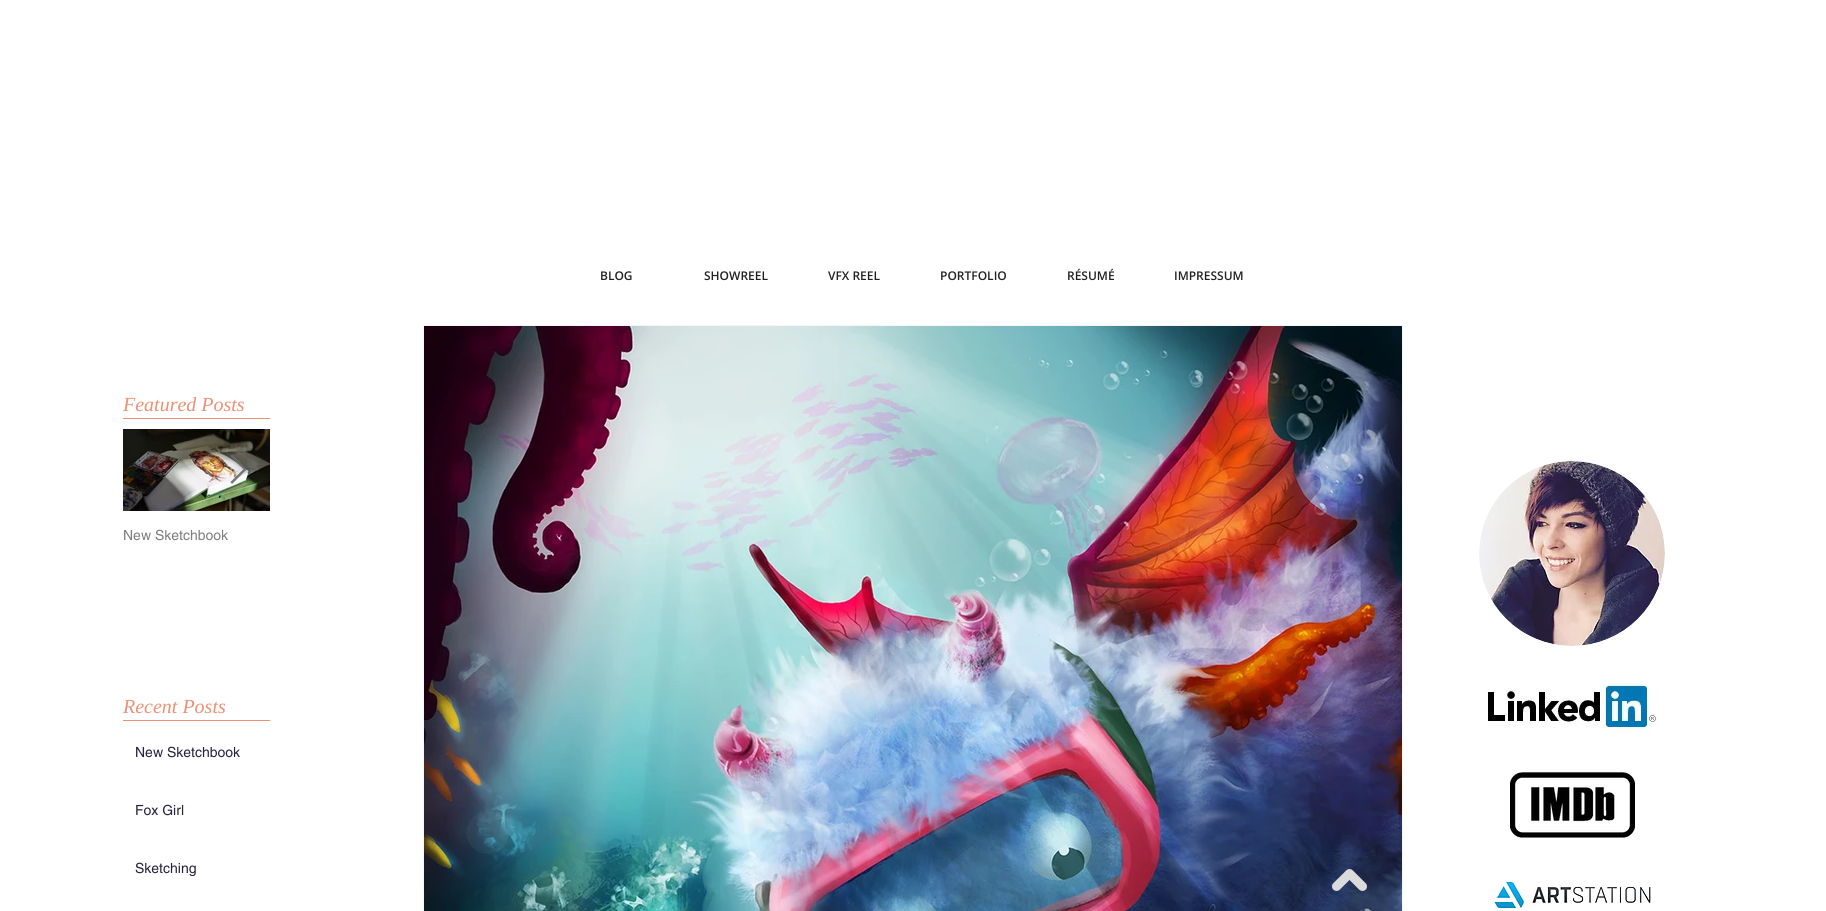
#include <cairo.h>
#include <math.h>
#include <stddef.h>

typedef struct { double x, y; const char *s; } line_t;

static void ink(cairo_t *ctx, unsigned color) {
    cairo_set_source_rgb(ctx, (color >> 16) / 255.0, (color >> 8 & 255) / 255.0, (color & 255) / 255.0);
}

static void paste(cairo_t *ctx, const char *path, double x, double y, double w, double h) {
    cairo_surface_t *image = cairo_image_surface_create_from_png(path);
    cairo_save(ctx);
    cairo_set_source_surface(ctx, image, x, y);
    cairo_rectangle(ctx, x, y, w, h);
    cairo_fill(ctx);
    cairo_restore(ctx);
    cairo_surface_destroy(image);
}

int main(void) {
    cairo_surface_t *surface = cairo_image_surface_create(CAIRO_FORMAT_RGB24, 1826, 911);
    cairo_t *ctx = cairo_create(surface);
    cairo_font_options_t *options = cairo_font_options_create();
    cairo_font_options_set_hint_metrics(options, CAIRO_HINT_METRICS_OFF);
    cairo_font_options_set_hint_style(options, CAIRO_HINT_STYLE_NONE);
    cairo_set_font_options(ctx, options);
    cairo_set_miter_limit(ctx, 4);
    ink(ctx, 0xFFFFFF);
    cairo_paint(ctx);
    cairo_select_font_face(ctx, "Open Sans SemiBold", CAIRO_FONT_SLANT_NORMAL, CAIRO_FONT_WEIGHT_NORMAL);
    cairo_set_font_size(ctx, 12);
    ink(ctx, 0x222222);
    {
        static const line_t items[] = {
            {600, 280, "BLOG"},
            {704, 280, "SHOWREEL"},
            {828, 280, "VFX REEL"},
            {940, 280, "PORTFOLIO"},
            {1067, 280, "RÉSUMÉ"},
            {1174, 280, "IMPRESSUM"},
        };
        for (size_t i = 0; i < sizeof items / sizeof *items; i++) {
            cairo_move_to(ctx, items[i].x, items[i].y);
            cairo_show_text(ctx, items[i].s);
        }
    }
    paste(ctx, "media/1.png", 1479, 461, 186, 185);
    paste(ctx, "media/2.png", 1487, 684, 172, 49);
    paste(ctx, "media/3.png", 1510, 772, 125, 66);
    paste(ctx, "media/4.png", 1494, 881, 157, 28);
    cairo_select_font_face(ctx, "Liberation Serif", CAIRO_FONT_SLANT_ITALIC, CAIRO_FONT_WEIGHT_NORMAL);
    cairo_set_font_size(ctx, 20);
    ink(ctx, 0xED9074);
    cairo_move_to(ctx, 123, 411);
    cairo_show_text(ctx, "Featured Posts");
    ink(ctx, 0xF5F5F5);
    cairo_rectangle(ctx, 423, 325, 980, 586);
    cairo_fill(ctx);
    paste(ctx, "media/5.png", 424, 326, 978, 585);
    ink(ctx, 0xED9074);
    cairo_rectangle(ctx, 123, 418, 147, 1);
    cairo_fill(ctx);
    paste(ctx, "media/7.png", 123, 429, 147, 82);
    paste(ctx, "media/6.png", 230, 455, 17, 29);
    cairo_select_font_face(ctx, "helvetica", CAIRO_FONT_SLANT_NORMAL, CAIRO_FONT_WEIGHT_NORMAL);
    cairo_set_font_size(ctx, 14);
    ink(ctx, 0x7E7E7E);
    cairo_move_to(ctx, 123, 540);
    cairo_show_text(ctx, "New Sketchbook");
    cairo_select_font_face(ctx, "Liberation Serif", CAIRO_FONT_SLANT_ITALIC, CAIRO_FONT_WEIGHT_NORMAL);
    cairo_set_font_size(ctx, 20);
    ink(ctx, 0xED9074);
    cairo_move_to(ctx, 123, 713);
    cairo_show_text(ctx, "Recent Posts");
    cairo_rectangle(ctx, 123, 720, 147, 1);
    cairo_fill(ctx);
    cairo_select_font_face(ctx, "helvetica", CAIRO_FONT_SLANT_NORMAL, CAIRO_FONT_WEIGHT_NORMAL);
    cairo_set_font_size(ctx, 14);
    ink(ctx, 0x27223E);
    {
        static const line_t items[] = {
            {135, 757, "New Sketchbook"},
            {135, 815, "Fox Girl"},
            {135, 873, "Sketching"},
        };
        for (size_t i = 0; i < sizeof items / sizeof *items; i++) {
            cairo_move_to(ctx, items[i].x, items[i].y);
            cairo_show_text(ctx, items[i].s);
        }
    }
    paste(ctx, "media/8.png", 1332, 869, 35, 22);
    cairo_surface_write_to_png(surface, "image.png");
    cairo_font_options_destroy(options);
    cairo_destroy(ctx);
    cairo_surface_destroy(surface);
    return 0;
}
